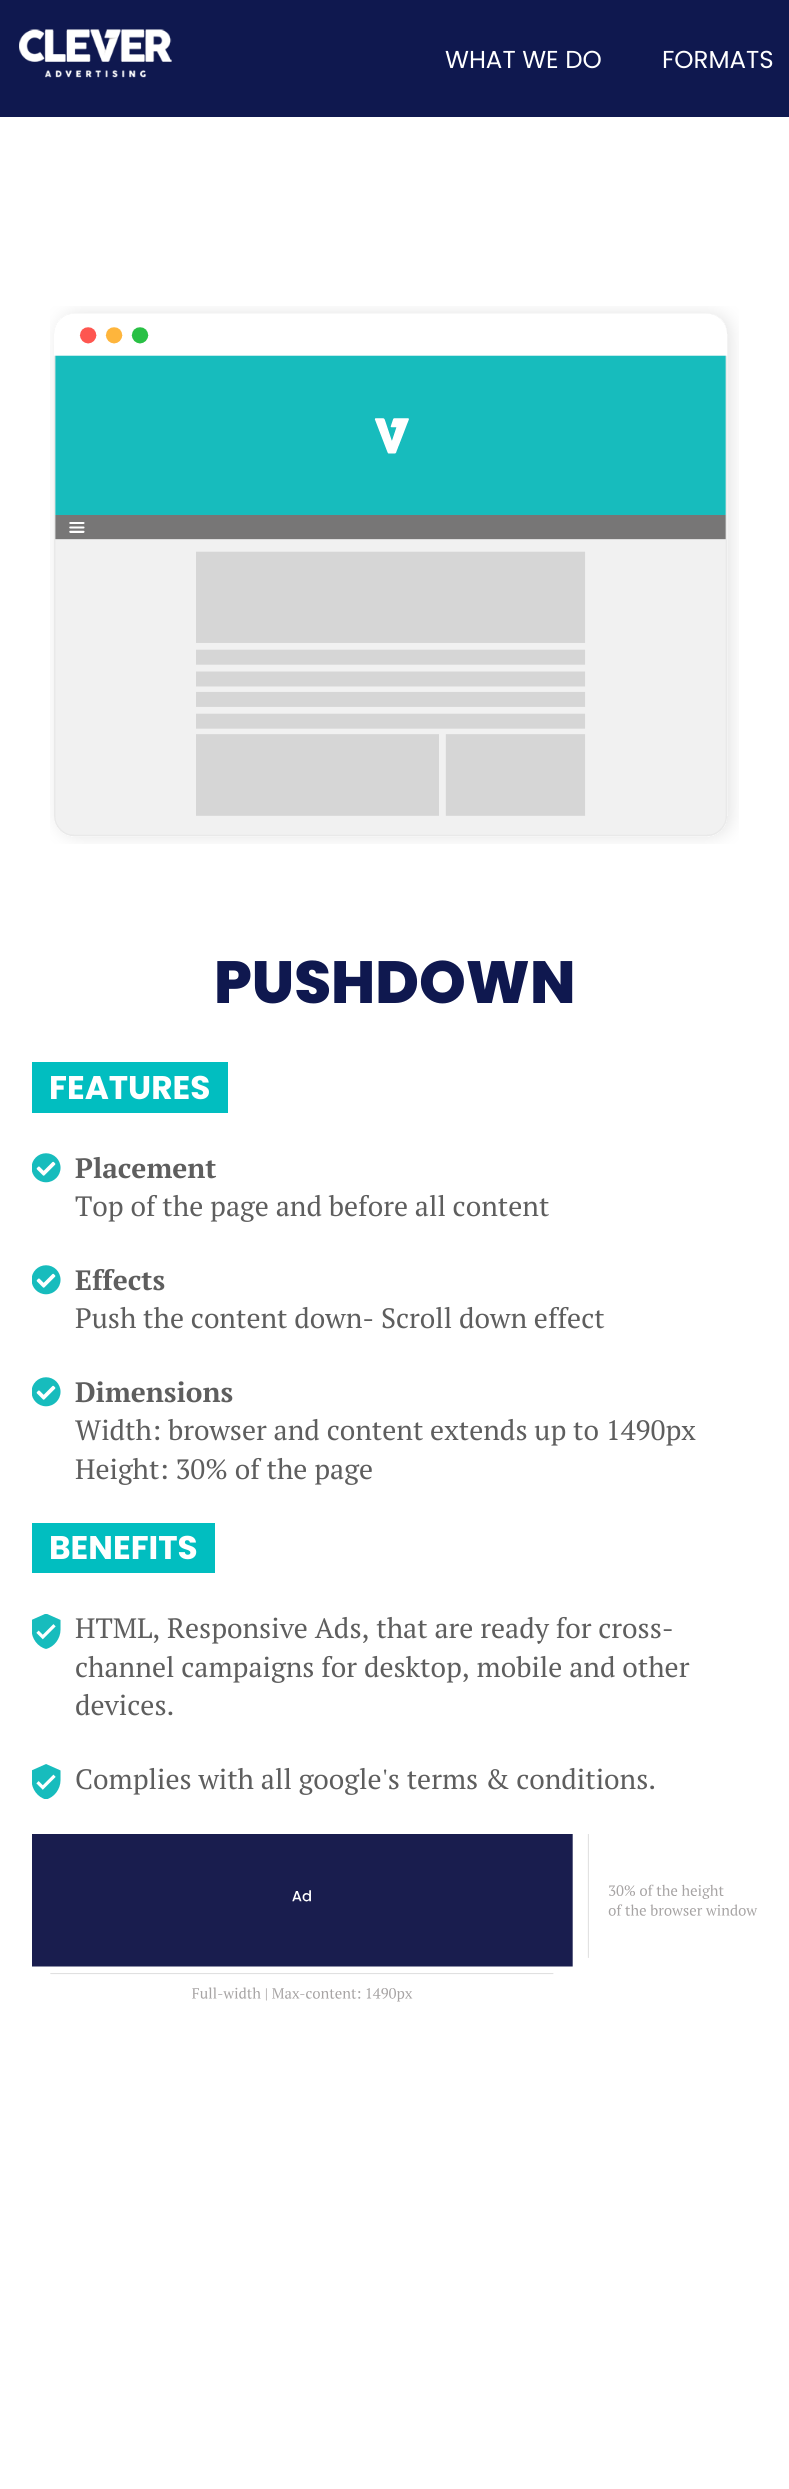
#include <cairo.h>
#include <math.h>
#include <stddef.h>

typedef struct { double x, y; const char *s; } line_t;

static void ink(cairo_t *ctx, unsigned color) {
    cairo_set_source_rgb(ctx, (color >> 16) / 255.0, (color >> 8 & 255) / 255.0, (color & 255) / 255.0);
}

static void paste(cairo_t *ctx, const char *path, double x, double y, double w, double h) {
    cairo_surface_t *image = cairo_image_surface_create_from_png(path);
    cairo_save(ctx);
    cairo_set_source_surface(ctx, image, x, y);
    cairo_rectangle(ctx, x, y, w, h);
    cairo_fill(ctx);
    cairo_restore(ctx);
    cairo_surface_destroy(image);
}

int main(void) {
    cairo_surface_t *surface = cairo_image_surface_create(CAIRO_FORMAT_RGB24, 789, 2489);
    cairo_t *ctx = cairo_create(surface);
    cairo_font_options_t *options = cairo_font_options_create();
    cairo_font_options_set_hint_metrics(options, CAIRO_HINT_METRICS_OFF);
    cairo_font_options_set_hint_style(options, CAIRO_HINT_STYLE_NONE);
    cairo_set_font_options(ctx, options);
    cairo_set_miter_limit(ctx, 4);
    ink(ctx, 0xFFFFFF);
    cairo_paint(ctx);
    ink(ctx, 0x0F184F);
    cairo_rectangle(ctx, 0, 0, 789, 117);
    cairo_fill(ctx);
    paste(ctx, "media/1.png", 19, 29, 153, 49);
    cairo_select_font_face(ctx, "Poppins", CAIRO_FONT_SLANT_NORMAL, CAIRO_FONT_WEIGHT_NORMAL);
    cairo_set_font_size(ctx, 24.5);
    ink(ctx, 0xFFFFFF);
    cairo_move_to(ctx, 445, 68);
    cairo_show_text(ctx, "WHAT WE DO");
    cairo_move_to(ctx, 662, 68);
    cairo_show_text(ctx, "FORMATS");
    paste(ctx, "media/2.png", 50, 306, 689, 538);
    cairo_select_font_face(ctx, "Poppins ExtraBold", CAIRO_FONT_SLANT_NORMAL, CAIRO_FONT_WEIGHT_NORMAL);
    cairo_set_font_size(ctx, 59.5);
    ink(ctx, 0x0F184F);
    cairo_move_to(ctx, 214, 1003);
    cairo_show_text(ctx, "PUSHDOWN");
    ink(ctx, 0x01BEC0);
    cairo_rectangle(ctx, 32, 1062, 196, 51);
    cairo_fill(ctx);
    cairo_select_font_face(ctx, "Poppins", CAIRO_FONT_SLANT_NORMAL, CAIRO_FONT_WEIGHT_BOLD);
    cairo_set_font_size(ctx, 32.75);
    ink(ctx, 0xFFFFFF);
    cairo_move_to(ctx, 49, 1099);
    cairo_show_text(ctx, "FEATURES");
    paste(ctx, "media/3.png", 32, 1153, 29, 30);
    cairo_select_font_face(ctx, "PT Serif", CAIRO_FONT_SLANT_NORMAL, CAIRO_FONT_WEIGHT_BOLD);
    cairo_set_font_size(ctx, 28);
    ink(ctx, 0x5E5E5E);
    cairo_move_to(ctx, 75, 1178);
    cairo_show_text(ctx, "Placement");
    cairo_select_font_face(ctx, "PT Serif", CAIRO_FONT_SLANT_NORMAL, CAIRO_FONT_WEIGHT_NORMAL);
    cairo_move_to(ctx, 75, 1216);
    cairo_show_text(ctx, "Top of the page and before all content");
    paste(ctx, "media/3.png", 32, 1265, 29, 30);
    cairo_select_font_face(ctx, "PT Serif", CAIRO_FONT_SLANT_NORMAL, CAIRO_FONT_WEIGHT_BOLD);
    cairo_move_to(ctx, 75, 1290);
    cairo_show_text(ctx, "Effects");
    cairo_select_font_face(ctx, "PT Serif", CAIRO_FONT_SLANT_NORMAL, CAIRO_FONT_WEIGHT_NORMAL);
    cairo_move_to(ctx, 75, 1328);
    cairo_show_text(ctx, "Push the content down- Scroll down effect");
    paste(ctx, "media/3.png", 32, 1377, 29, 30);
    cairo_select_font_face(ctx, "PT Serif", CAIRO_FONT_SLANT_NORMAL, CAIRO_FONT_WEIGHT_BOLD);
    cairo_move_to(ctx, 75, 1402);
    cairo_show_text(ctx, "Dimensions");
    cairo_select_font_face(ctx, "PT Serif", CAIRO_FONT_SLANT_NORMAL, CAIRO_FONT_WEIGHT_NORMAL);
    cairo_move_to(ctx, 75, 1440);
    cairo_show_text(ctx, "Width: browser and content extends up to 1490px");
    cairo_move_to(ctx, 75, 1479);
    cairo_show_text(ctx, "Height: 30% of the page");
    ink(ctx, 0x01BEC0);
    cairo_rectangle(ctx, 32, 1523, 183, 50);
    cairo_fill(ctx);
    cairo_select_font_face(ctx, "Poppins", CAIRO_FONT_SLANT_NORMAL, CAIRO_FONT_WEIGHT_BOLD);
    cairo_set_font_size(ctx, 32.75);
    ink(ctx, 0xFFFFFF);
    cairo_move_to(ctx, 49, 1559);
    cairo_show_text(ctx, "BENEFITS");
    paste(ctx, "media/4.png", 32, 1614, 29, 35);
    cairo_select_font_face(ctx, "PT Serif", CAIRO_FONT_SLANT_NORMAL, CAIRO_FONT_WEIGHT_NORMAL);
    cairo_set_font_size(ctx, 28);
    ink(ctx, 0x5E5E5E);
    {
        static const line_t items[] = {
            {75, 1638, "HTML, Responsive Ads, that are ready for cross-"},
            {75, 1677, "channel campaigns for desktop, mobile and other"},
            {75, 1715, "devices."},
        };
        for (size_t i = 0; i < sizeof items / sizeof *items; i++) {
            cairo_move_to(ctx, items[i].x, items[i].y);
            cairo_show_text(ctx, items[i].s);
        }
    }
    paste(ctx, "media/5.png", 32, 1764, 29, 35);
    cairo_move_to(ctx, 75, 1789);
    cairo_show_text(ctx, "Complies with all google's terms & conditions.");
    paste(ctx, "media/6.png", 32, 1834, 726, 168);
    cairo_surface_write_to_png(surface, "image.png");
    cairo_font_options_destroy(options);
    cairo_destroy(ctx);
    cairo_surface_destroy(surface);
    return 0;
}
